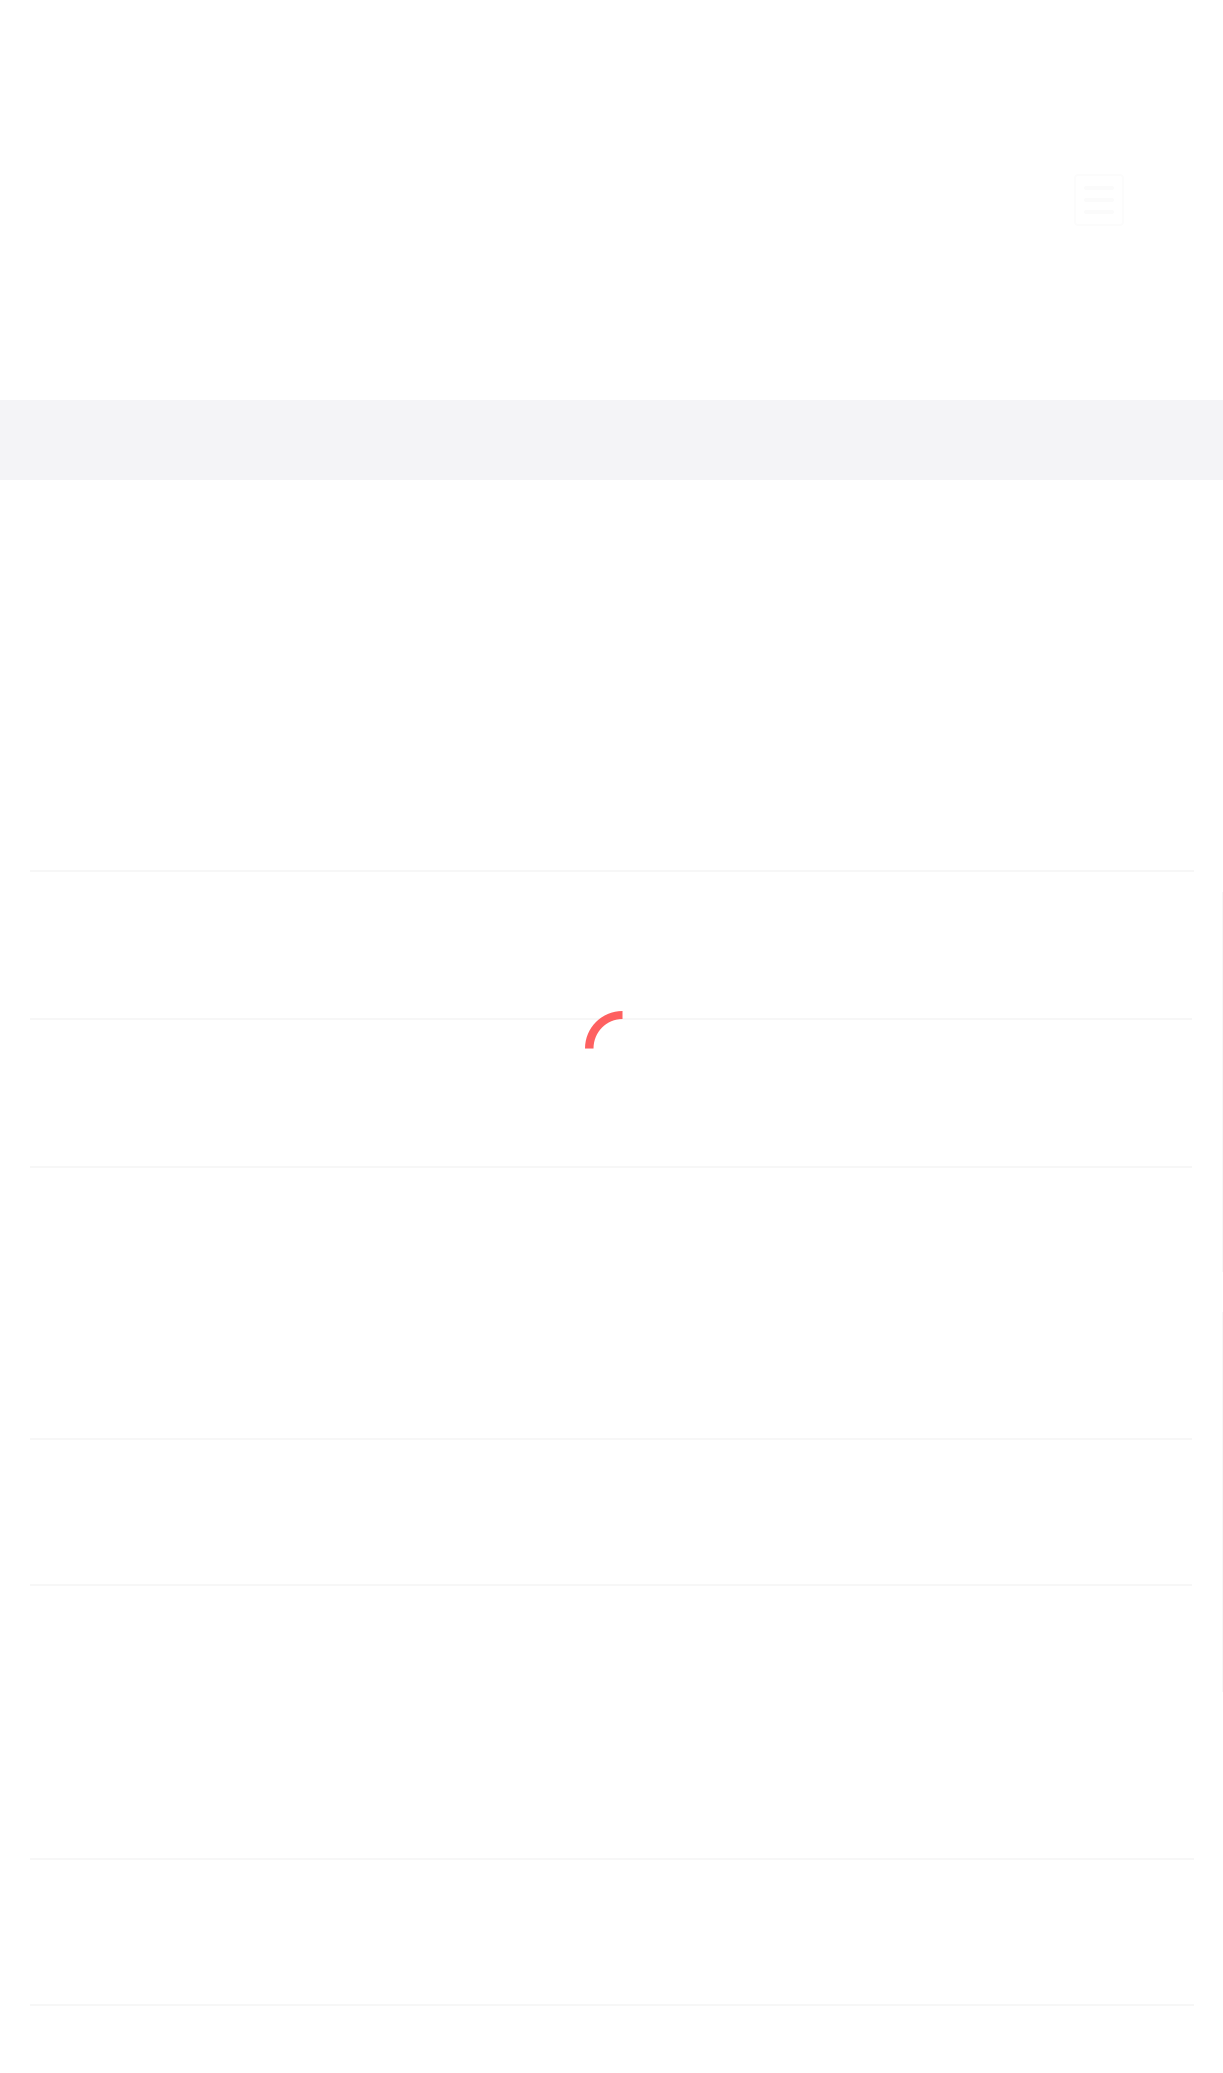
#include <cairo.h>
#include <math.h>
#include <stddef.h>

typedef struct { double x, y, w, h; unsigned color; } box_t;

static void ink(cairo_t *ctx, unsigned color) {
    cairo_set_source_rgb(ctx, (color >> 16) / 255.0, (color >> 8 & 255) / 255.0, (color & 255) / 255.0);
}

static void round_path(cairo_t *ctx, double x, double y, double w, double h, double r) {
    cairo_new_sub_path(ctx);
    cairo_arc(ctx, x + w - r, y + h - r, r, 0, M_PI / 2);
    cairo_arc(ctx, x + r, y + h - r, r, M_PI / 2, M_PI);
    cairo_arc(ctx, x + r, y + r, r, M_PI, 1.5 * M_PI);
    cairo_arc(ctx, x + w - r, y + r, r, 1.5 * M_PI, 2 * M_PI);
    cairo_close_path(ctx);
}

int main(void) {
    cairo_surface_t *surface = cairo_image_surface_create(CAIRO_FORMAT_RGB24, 1223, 2073);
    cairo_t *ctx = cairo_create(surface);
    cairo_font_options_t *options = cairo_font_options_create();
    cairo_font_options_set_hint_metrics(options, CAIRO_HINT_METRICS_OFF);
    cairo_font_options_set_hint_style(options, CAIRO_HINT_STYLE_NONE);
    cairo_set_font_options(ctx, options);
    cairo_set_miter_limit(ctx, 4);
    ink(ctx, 0xFFFFFF);
    cairo_paint(ctx);
    round_path(ctx, 1075, 175, 48, 50, 3);
    ink(ctx, 0xFCFCFC);
    cairo_stroke(ctx);
    ink(ctx, 0xFBFBFB);
    round_path(ctx, 1084, 198, 30, 4, 2);
    cairo_fill(ctx);
    round_path(ctx, 1084, 186, 30, 4, 2);
    cairo_fill(ctx);
    round_path(ctx, 1084, 210, 30, 4, 2);
    cairo_fill(ctx);
    {
        static const box_t items[] = {
            {0, 400, 1223, 80, 0xF4F4F7},
            {30, 870, 1164, 2, 0xF7F7F7},
            {1222, 892, 1, 380, 0xF7F7F7},
            {30, 1018, 1162, 2, 0xF7F7F7},
            {30, 1166, 1162, 2, 0xF7F7F7},
            {1222, 1312, 1, 380, 0xF7F7F7},
            {30, 1438, 1162, 2, 0xF7F7F7},
            {30, 1584, 1162, 2, 0xF7F7F7},
            {30, 1858, 1164, 2, 0xF7F7F7},
            {30, 2004, 1164, 2, 0xF7F7F7},
        };
        for (size_t i = 0; i < sizeof items / sizeof *items; i++) {
            ink(ctx, items[i].color);
            cairo_rectangle(ctx, items[i].x, items[i].y, items[i].w, items[i].h);
            cairo_fill(ctx);
        }
    }
    ink(ctx, 0xFE6060);
    cairo_new_path(ctx);
    cairo_move_to(ctx, 622.5, 1011);
    cairo_curve_to(ctx, 602, 1011, 585, 1027.5, 585, 1048.5);
    cairo_line_to(ctx, 593.5, 1048.5);
    cairo_curve_to(ctx, 593.5, 1032, 606.5, 1019, 622.5, 1019);
    cairo_close_path(ctx);
    cairo_fill(ctx);
    cairo_surface_write_to_png(surface, "image.png");
    cairo_font_options_destroy(options);
    cairo_destroy(ctx);
    cairo_surface_destroy(surface);
    return 0;
}
